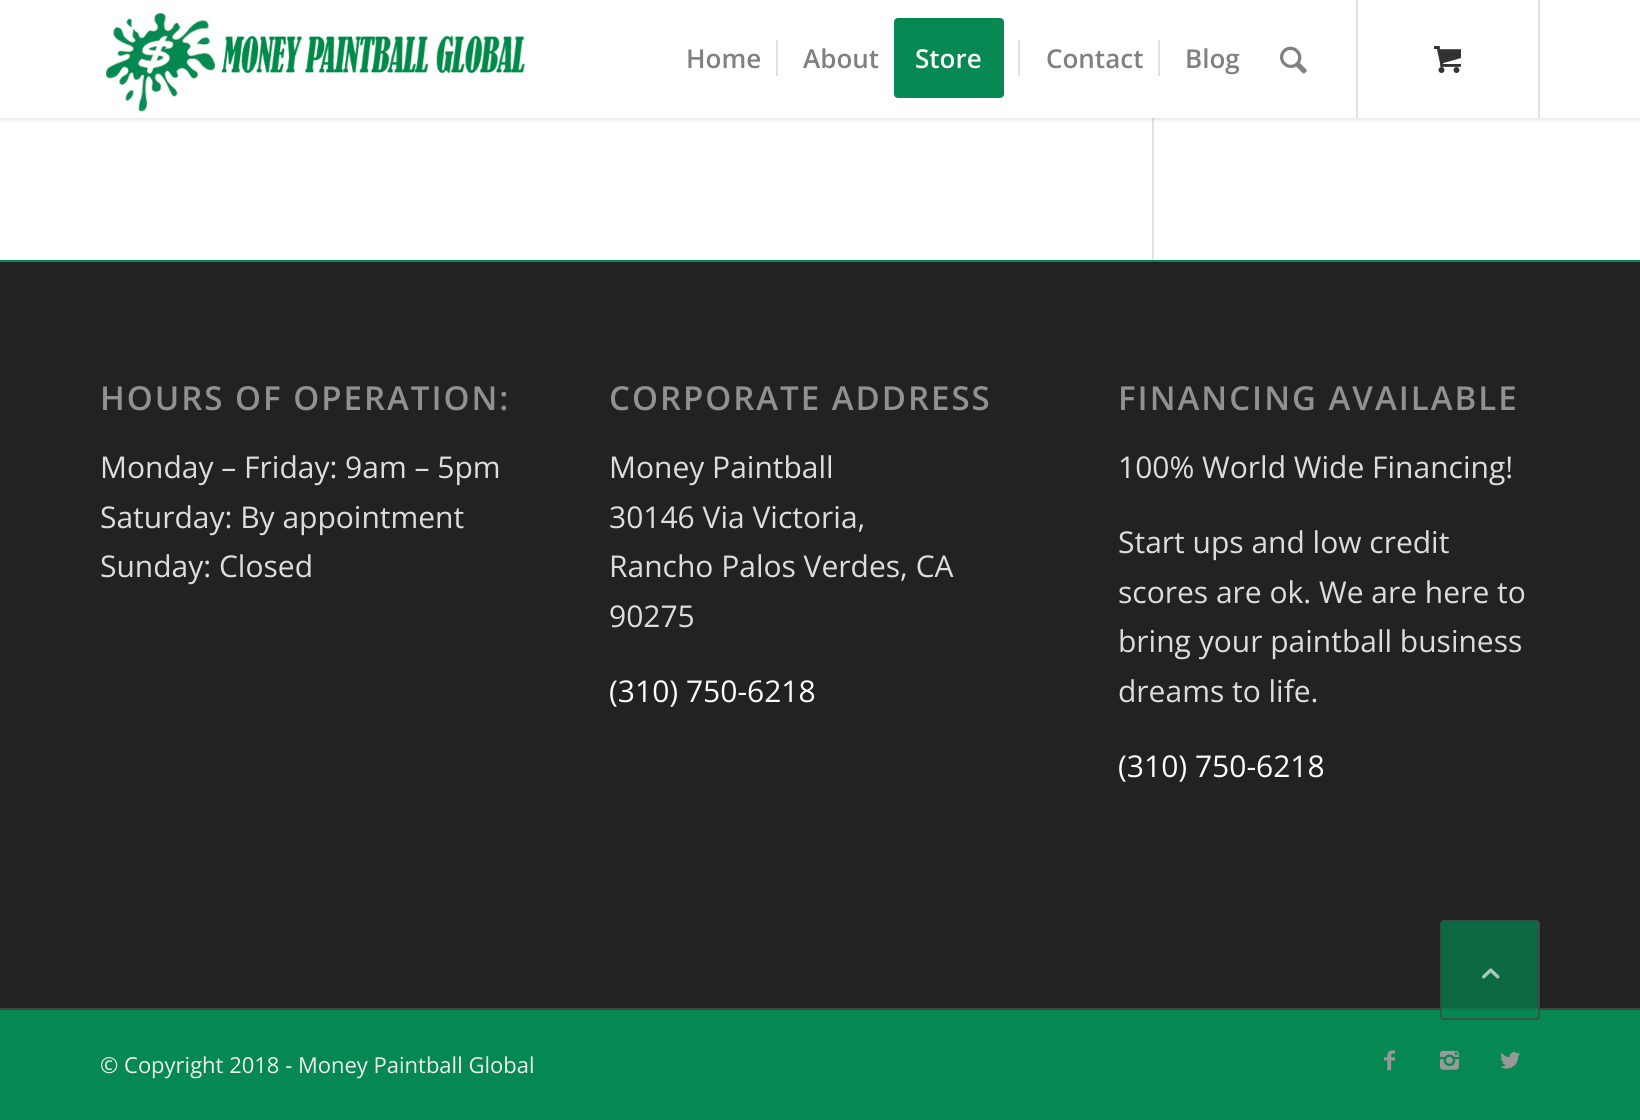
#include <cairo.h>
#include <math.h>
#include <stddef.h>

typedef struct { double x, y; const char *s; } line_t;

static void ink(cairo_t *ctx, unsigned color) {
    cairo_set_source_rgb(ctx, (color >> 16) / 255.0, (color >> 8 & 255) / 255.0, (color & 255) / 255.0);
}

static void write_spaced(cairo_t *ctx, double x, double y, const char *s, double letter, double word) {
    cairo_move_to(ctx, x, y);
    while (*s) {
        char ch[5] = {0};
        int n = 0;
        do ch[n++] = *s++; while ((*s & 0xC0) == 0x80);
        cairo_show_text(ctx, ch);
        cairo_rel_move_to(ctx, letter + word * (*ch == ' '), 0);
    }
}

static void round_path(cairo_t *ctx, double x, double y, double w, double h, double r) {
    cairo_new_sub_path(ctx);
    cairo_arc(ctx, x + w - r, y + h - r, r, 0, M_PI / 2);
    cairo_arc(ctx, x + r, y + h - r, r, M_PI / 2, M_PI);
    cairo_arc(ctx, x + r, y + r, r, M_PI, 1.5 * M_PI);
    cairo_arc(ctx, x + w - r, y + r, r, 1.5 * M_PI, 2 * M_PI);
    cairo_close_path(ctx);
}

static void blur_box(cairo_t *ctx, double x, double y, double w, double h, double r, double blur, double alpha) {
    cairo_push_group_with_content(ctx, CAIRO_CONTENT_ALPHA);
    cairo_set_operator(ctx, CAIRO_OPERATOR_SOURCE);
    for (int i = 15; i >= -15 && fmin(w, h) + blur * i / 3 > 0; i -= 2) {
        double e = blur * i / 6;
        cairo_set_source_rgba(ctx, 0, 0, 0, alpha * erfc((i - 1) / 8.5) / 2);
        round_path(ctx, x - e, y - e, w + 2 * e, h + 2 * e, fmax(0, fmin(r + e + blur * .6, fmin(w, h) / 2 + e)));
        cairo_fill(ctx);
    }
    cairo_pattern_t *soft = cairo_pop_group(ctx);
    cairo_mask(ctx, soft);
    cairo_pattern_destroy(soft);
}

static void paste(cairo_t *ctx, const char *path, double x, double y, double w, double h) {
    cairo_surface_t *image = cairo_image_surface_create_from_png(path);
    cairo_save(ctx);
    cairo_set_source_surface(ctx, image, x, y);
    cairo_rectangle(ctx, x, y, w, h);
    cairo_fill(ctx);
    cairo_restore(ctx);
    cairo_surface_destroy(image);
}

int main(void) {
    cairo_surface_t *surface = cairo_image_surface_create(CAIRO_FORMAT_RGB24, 1640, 1120);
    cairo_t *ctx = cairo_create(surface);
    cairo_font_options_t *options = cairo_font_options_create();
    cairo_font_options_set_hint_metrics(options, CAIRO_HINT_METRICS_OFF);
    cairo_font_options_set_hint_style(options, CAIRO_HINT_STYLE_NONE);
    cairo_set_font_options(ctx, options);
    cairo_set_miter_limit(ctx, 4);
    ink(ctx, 0xFFFFFF);
    cairo_paint(ctx);
    ink(ctx, 0xE1E1E1);
    cairo_rectangle(ctx, 1152, 118, 2, 142);
    cairo_fill(ctx);
    ink(ctx, 0x000000);
    blur_box(ctx, -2, -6, 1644, 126, 0, 2, 0.1);
    ink(ctx, 0xFFFFFF);
    cairo_rectangle(ctx, 0, 0, 1640, 118);
    cairo_fill(ctx);
    paste(ctx, "media/1.png", 106, 13, 419, 99);
    cairo_select_font_face(ctx, "Open Sans SemiBold", CAIRO_FONT_SLANT_NORMAL, CAIRO_FONT_WEIGHT_NORMAL);
    cairo_set_font_size(ctx, 26);
    ink(ctx, 0x808080);
    cairo_move_to(ctx, 686, 68);
    cairo_show_text(ctx, "Home");
    cairo_move_to(ctx, 803, 68);
    cairo_show_text(ctx, "About");
    ink(ctx, 0xE1E1E1);
    cairo_rectangle(ctx, 776, 40, 2, 36);
    cairo_fill(ctx);
    ink(ctx, 0x058851);
    round_path(ctx, 896, 20, 106, 76, 2);
    cairo_fill_preserve(ctx);
    cairo_set_line_width(ctx, 4);
    cairo_stroke(ctx);
    ink(ctx, 0xFFFFFF);
    cairo_move_to(ctx, 915, 68);
    cairo_show_text(ctx, "Store");
    ink(ctx, 0x808080);
    cairo_move_to(ctx, 1046, 68);
    cairo_show_text(ctx, "Contact");
    ink(ctx, 0xE1E1E1);
    cairo_rectangle(ctx, 1018, 40, 2, 36);
    cairo_fill(ctx);
    ink(ctx, 0x808080);
    cairo_move_to(ctx, 1185, 68);
    cairo_show_text(ctx, "Blog");
    ink(ctx, 0xE1E1E1);
    cairo_rectangle(ctx, 1158, 40, 2, 36);
    cairo_fill(ctx);
    paste(ctx, "media/2.png", 1280, 46, 27, 28);
    cairo_rectangle(ctx, 1538, 0, 2, 118);
    cairo_fill(ctx);
    cairo_rectangle(ctx, 1356, 0, 2, 118);
    cairo_fill(ctx);
    paste(ctx, "media/3.png", 1434, 46, 27, 27);
    ink(ctx, 0x222222);
    cairo_rectangle(ctx, 0, 262, 1640, 746);
    cairo_fill(ctx);
    ink(ctx, 0x028953);
    cairo_rectangle(ctx, 0, 260, 1640, 2);
    cairo_fill(ctx);
    cairo_set_font_size(ctx, 33);
    ink(ctx, 0x919191);
    write_spaced(ctx, 100, 410, "HOURS OF OPERATION:", 2, 0);
    cairo_select_font_face(ctx, "Open Sans", CAIRO_FONT_SLANT_NORMAL, CAIRO_FONT_WEIGHT_NORMAL);
    cairo_set_font_size(ctx, 30);
    ink(ctx, 0xDDDDDD);
    {
        static const line_t items[] = {
            {100, 478, "Monday – Friday: 9am – 5pm"},
            {100, 528, "Saturday: By appointment"},
            {100, 577, "Sunday: Closed"},
        };
        for (size_t i = 0; i < sizeof items / sizeof *items; i++) {
            cairo_move_to(ctx, items[i].x, items[i].y);
            cairo_show_text(ctx, items[i].s);
        }
    }
    cairo_select_font_face(ctx, "Open Sans SemiBold", CAIRO_FONT_SLANT_NORMAL, CAIRO_FONT_WEIGHT_NORMAL);
    cairo_set_font_size(ctx, 33);
    ink(ctx, 0x919191);
    write_spaced(ctx, 609, 410, "CORPORATE ADDRESS", 2, 0);
    cairo_select_font_face(ctx, "Open Sans", CAIRO_FONT_SLANT_NORMAL, CAIRO_FONT_WEIGHT_NORMAL);
    cairo_set_font_size(ctx, 30);
    ink(ctx, 0xDDDDDD);
    {
        static const line_t items[] = {
            {609, 478, "Money Paintball"},
            {609, 528, "30146 Via Victoria,"},
            {609, 577, "Rancho Palos Verdes, CA"},
            {609, 627, "90275"},
        };
        for (size_t i = 0; i < sizeof items / sizeof *items; i++) {
            cairo_move_to(ctx, items[i].x, items[i].y);
            cairo_show_text(ctx, items[i].s);
        }
    }
    ink(ctx, 0xFFFFFF);
    cairo_move_to(ctx, 609, 702);
    cairo_show_text(ctx, "(310) 750-6218");
    cairo_select_font_face(ctx, "Open Sans SemiBold", CAIRO_FONT_SLANT_NORMAL, CAIRO_FONT_WEIGHT_NORMAL);
    cairo_set_font_size(ctx, 33);
    ink(ctx, 0x919191);
    write_spaced(ctx, 1118, 410, "FINANCING AVAILABLE", 2, 0);
    cairo_select_font_face(ctx, "Open Sans", CAIRO_FONT_SLANT_NORMAL, CAIRO_FONT_WEIGHT_NORMAL);
    cairo_set_font_size(ctx, 30);
    ink(ctx, 0xDDDDDD);
    {
        static const line_t items[] = {
            {1118, 478, "100% World Wide Financing!"},
            {1118, 553, "Start ups and low credit"},
            {1118, 603, "scores are ok. We are here to"},
            {1118, 652, "bring your paintball business"},
            {1118, 702, "dreams to life."},
        };
        for (size_t i = 0; i < sizeof items / sizeof *items; i++) {
            cairo_move_to(ctx, items[i].x, items[i].y);
            cairo_show_text(ctx, items[i].s);
        }
    }
    ink(ctx, 0xFFFFFF);
    cairo_move_to(ctx, 1118, 777);
    cairo_show_text(ctx, "(310) 750-6218");
    ink(ctx, 0x058851);
    cairo_rectangle(ctx, 0, 1010, 1640, 110);
    cairo_fill(ctx);
    ink(ctx, 0x444444);
    cairo_rectangle(ctx, 0, 1008, 1640, 2);
    cairo_fill(ctx);
    cairo_set_font_size(ctx, 22);
    ink(ctx, 0xEEEEEE);
    cairo_move_to(ctx, 100, 1073);
    cairo_show_text(ctx, "© Copyright 2018 - Money Paintball Global");
    paste(ctx, "media/4.png", 1384, 1050, 11, 21);
    paste(ctx, "media/5.png", 1440, 1050, 19, 20);
    paste(ctx, "media/6.png", 1500, 1052, 21, 17);
    cairo_set_source_rgba(ctx, 0.02, 0.533, 0.318, 0.7);
    round_path(ctx, 1440, 920, 100, 100, 4);
    cairo_fill(ctx);
    round_path(ctx, 1441, 921, 98, 98, 3);
    cairo_set_source_rgba(ctx, 0.267, 0.267, 0.267, 0.7);
    cairo_set_line_width(ctx, 2);
    cairo_stroke(ctx);
    paste(ctx, "media/7.png", 1482, 968, 18, 11);
    cairo_surface_write_to_png(surface, "image.png");
    cairo_font_options_destroy(options);
    cairo_destroy(ctx);
    cairo_surface_destroy(surface);
    return 0;
}
